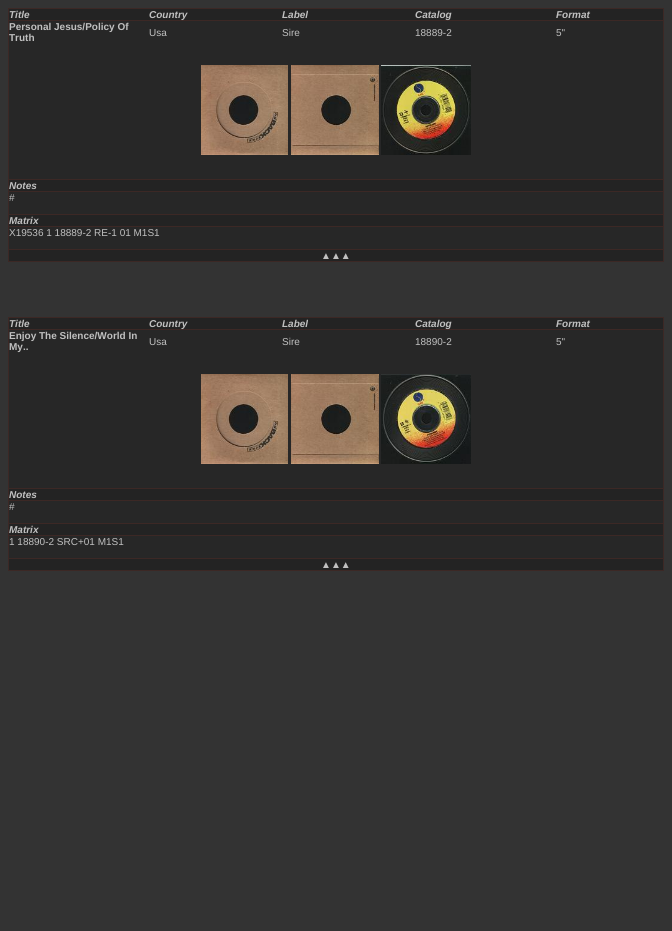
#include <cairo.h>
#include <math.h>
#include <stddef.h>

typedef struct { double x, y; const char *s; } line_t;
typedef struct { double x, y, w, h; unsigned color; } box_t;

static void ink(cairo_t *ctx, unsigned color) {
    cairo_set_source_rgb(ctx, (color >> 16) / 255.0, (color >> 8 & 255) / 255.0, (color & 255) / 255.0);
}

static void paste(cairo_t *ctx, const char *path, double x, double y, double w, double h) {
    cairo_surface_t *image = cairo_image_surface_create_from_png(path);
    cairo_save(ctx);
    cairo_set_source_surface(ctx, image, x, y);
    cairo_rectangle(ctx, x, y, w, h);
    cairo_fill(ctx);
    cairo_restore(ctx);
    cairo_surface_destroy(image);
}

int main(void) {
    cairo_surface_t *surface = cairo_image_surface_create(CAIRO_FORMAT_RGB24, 672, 931);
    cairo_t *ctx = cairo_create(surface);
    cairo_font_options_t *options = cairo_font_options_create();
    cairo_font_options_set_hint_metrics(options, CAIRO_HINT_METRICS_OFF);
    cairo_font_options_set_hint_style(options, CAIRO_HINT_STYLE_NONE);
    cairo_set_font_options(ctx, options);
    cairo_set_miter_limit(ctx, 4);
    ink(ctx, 0x333333);
    cairo_paint(ctx);
    {
        static const box_t items[] = {
            {9, 9, 654, 11, 0x232323},
            {8, 8, 656, 1, 0x3C2825},
            {8, 20, 656, 1, 0x3C2825},
            {8, 179, 656, 1, 0x3C2825},
            {8, 191, 656, 1, 0x3C2825},
            {8, 214, 656, 1, 0x3C2825},
            {8, 226, 656, 1, 0x3C2825},
            {8, 249, 656, 1, 0x3C2825},
            {663, 238, 1, 24, 0x3C2825},
            {8, 261, 656, 1, 0x3C2825},
            {8, 238, 1, 24, 0x3C2825},
            {8, 226, 1, 13, 0x3C2825},
            {8, 203, 1, 24, 0x3C2825},
            {8, 191, 1, 13, 0x3C2825},
            {8, 43, 1, 149, 0x3C2825},
            {8, 20, 1, 24, 0x3C2825},
            {8, 8, 1, 13, 0x3C2825},
        };
        for (size_t i = 0; i < sizeof items / sizeof *items; i++) {
            ink(ctx, items[i].color);
            cairo_rectangle(ctx, items[i].x, items[i].y, items[i].w, items[i].h);
            cairo_fill(ctx);
        }
    }
    cairo_select_font_face(ctx, "Liberation Sans", CAIRO_FONT_SLANT_ITALIC, CAIRO_FONT_WEIGHT_BOLD);
    cairo_set_font_size(ctx, 10);
    ink(ctx, 0xC0C0C0);
    {
        static const line_t items[] = {
            {9, 18, "Title"},
            {149, 18, "Country"},
            {282, 18, "Label"},
            {415, 18, "Catalog"},
        };
        for (size_t i = 0; i < sizeof items / sizeof *items; i++) {
            cairo_move_to(ctx, items[i].x, items[i].y);
            cairo_show_text(ctx, items[i].s);
        }
    }
    {
        static const box_t items[] = {
            {663, 226, 1, 13, 0x3C2825},
            {663, 203, 1, 24, 0x3C2825},
            {663, 191, 1, 13, 0x3C2825},
            {663, 43, 1, 149, 0x3C2825},
            {663, 20, 1, 24, 0x3C2825},
            {663, 8, 1, 13, 0x3C2825},
        };
        for (size_t i = 0; i < sizeof items / sizeof *items; i++) {
            ink(ctx, items[i].color);
            cairo_rectangle(ctx, items[i].x, items[i].y, items[i].w, items[i].h);
            cairo_fill(ctx);
        }
    }
    ink(ctx, 0xC0C0C0);
    cairo_move_to(ctx, 556, 18);
    cairo_show_text(ctx, "Format");
    ink(ctx, 0x272727);
    cairo_rectangle(ctx, 9, 21, 654, 158);
    cairo_fill(ctx);
    cairo_select_font_face(ctx, "Liberation Sans", CAIRO_FONT_SLANT_NORMAL, CAIRO_FONT_WEIGHT_BOLD);
    ink(ctx, 0xC0C0C0);
    cairo_move_to(ctx, 9, 30);
    cairo_show_text(ctx, "Personal Jesus/Policy Of");
    cairo_move_to(ctx, 9, 41);
    cairo_show_text(ctx, "Truth");
    cairo_select_font_face(ctx, "Liberation Sans", CAIRO_FONT_SLANT_NORMAL, CAIRO_FONT_WEIGHT_NORMAL);
    {
        static const line_t items[] = {
            {149, 36, "Usa"},
            {282, 36, "Sire"},
            {415, 36, "18889-2"},
            {556, 36, "5\""},
        };
        for (size_t i = 0; i < sizeof items / sizeof *items; i++) {
            cairo_move_to(ctx, items[i].x, items[i].y);
            cairo_show_text(ctx, items[i].s);
        }
    }
    paste(ctx, "media/1.png", 201, 65, 87, 90);
    paste(ctx, "media/2.png", 291, 65, 88, 90);
    paste(ctx, "media/3.png", 381, 65, 90, 90);
    ink(ctx, 0x232323);
    cairo_rectangle(ctx, 9, 180, 654, 11);
    cairo_fill(ctx);
    cairo_select_font_face(ctx, "Liberation Sans", CAIRO_FONT_SLANT_ITALIC, CAIRO_FONT_WEIGHT_BOLD);
    ink(ctx, 0xC0C0C0);
    cairo_move_to(ctx, 9, 189);
    cairo_show_text(ctx, "Notes");
    ink(ctx, 0x272727);
    cairo_rectangle(ctx, 9, 192, 654, 22);
    cairo_fill(ctx);
    cairo_select_font_face(ctx, "Liberation Sans", CAIRO_FONT_SLANT_NORMAL, CAIRO_FONT_WEIGHT_NORMAL);
    ink(ctx, 0xC0C0C0);
    cairo_move_to(ctx, 9, 201);
    cairo_show_text(ctx, "#");
    ink(ctx, 0x232323);
    cairo_rectangle(ctx, 9, 215, 654, 11);
    cairo_fill(ctx);
    cairo_select_font_face(ctx, "Liberation Sans", CAIRO_FONT_SLANT_ITALIC, CAIRO_FONT_WEIGHT_BOLD);
    ink(ctx, 0xC0C0C0);
    cairo_move_to(ctx, 9, 224);
    cairo_show_text(ctx, "Matrix");
    ink(ctx, 0x272727);
    cairo_rectangle(ctx, 9, 227, 654, 22);
    cairo_fill(ctx);
    cairo_select_font_face(ctx, "Liberation Sans", CAIRO_FONT_SLANT_NORMAL, CAIRO_FONT_WEIGHT_NORMAL);
    ink(ctx, 0xC0C0C0);
    cairo_move_to(ctx, 9, 236);
    cairo_show_text(ctx, "X19536 1 18889-2 RE-1 01 M1S1");
    ink(ctx, 0x232323);
    cairo_rectangle(ctx, 9, 250, 654, 11);
    cairo_fill(ctx);
    ink(ctx, 0xC0C0C0);
    cairo_move_to(ctx, 321, 259);
    cairo_show_text(ctx, "▲▲▲");
    {
        static const box_t items[] = {
            {9, 318, 654, 11, 0x232323},
            {8, 317, 656, 1, 0x3C2825},
            {8, 329, 656, 1, 0x3C2825},
            {8, 488, 656, 1, 0x3C2825},
            {8, 500, 656, 1, 0x3C2825},
            {8, 523, 656, 1, 0x3C2825},
            {8, 535, 656, 1, 0x3C2825},
            {8, 558, 656, 1, 0x3C2825},
            {8, 570, 656, 1, 0x3C2825},
            {8, 547, 1, 24, 0x3C2825},
            {8, 535, 1, 13, 0x3C2825},
            {8, 512, 1, 24, 0x3C2825},
            {8, 500, 1, 13, 0x3C2825},
            {8, 352, 1, 149, 0x3C2825},
            {8, 329, 1, 24, 0x3C2825},
            {8, 317, 1, 13, 0x3C2825},
        };
        for (size_t i = 0; i < sizeof items / sizeof *items; i++) {
            ink(ctx, items[i].color);
            cairo_rectangle(ctx, items[i].x, items[i].y, items[i].w, items[i].h);
            cairo_fill(ctx);
        }
    }
    cairo_select_font_face(ctx, "Liberation Sans", CAIRO_FONT_SLANT_ITALIC, CAIRO_FONT_WEIGHT_BOLD);
    ink(ctx, 0xC0C0C0);
    {
        static const line_t items[] = {
            {9, 327, "Title"},
            {149, 327, "Country"},
            {282, 327, "Label"},
            {415, 327, "Catalog"},
        };
        for (size_t i = 0; i < sizeof items / sizeof *items; i++) {
            cairo_move_to(ctx, items[i].x, items[i].y);
            cairo_show_text(ctx, items[i].s);
        }
    }
    {
        static const box_t items[] = {
            {663, 547, 1, 24, 0x3C2825},
            {663, 535, 1, 13, 0x3C2825},
            {663, 512, 1, 24, 0x3C2825},
            {663, 500, 1, 13, 0x3C2825},
            {663, 352, 1, 149, 0x3C2825},
            {663, 329, 1, 24, 0x3C2825},
            {663, 317, 1, 13, 0x3C2825},
        };
        for (size_t i = 0; i < sizeof items / sizeof *items; i++) {
            ink(ctx, items[i].color);
            cairo_rectangle(ctx, items[i].x, items[i].y, items[i].w, items[i].h);
            cairo_fill(ctx);
        }
    }
    ink(ctx, 0xC0C0C0);
    cairo_move_to(ctx, 556, 327);
    cairo_show_text(ctx, "Format");
    ink(ctx, 0x272727);
    cairo_rectangle(ctx, 9, 330, 654, 158);
    cairo_fill(ctx);
    cairo_select_font_face(ctx, "Liberation Sans", CAIRO_FONT_SLANT_NORMAL, CAIRO_FONT_WEIGHT_BOLD);
    ink(ctx, 0xC0C0C0);
    cairo_move_to(ctx, 9, 339);
    cairo_show_text(ctx, "Enjoy The Silence/World In");
    cairo_move_to(ctx, 9, 350);
    cairo_show_text(ctx, "My..");
    cairo_select_font_face(ctx, "Liberation Sans", CAIRO_FONT_SLANT_NORMAL, CAIRO_FONT_WEIGHT_NORMAL);
    {
        static const line_t items[] = {
            {149, 345, "Usa"},
            {282, 345, "Sire"},
            {415, 345, "18890-2"},
            {556, 345, "5\""},
        };
        for (size_t i = 0; i < sizeof items / sizeof *items; i++) {
            cairo_move_to(ctx, items[i].x, items[i].y);
            cairo_show_text(ctx, items[i].s);
        }
    }
    paste(ctx, "media/4.png", 201, 374, 87, 90);
    paste(ctx, "media/5.png", 291, 374, 88, 90);
    paste(ctx, "media/6.png", 381, 374, 90, 90);
    ink(ctx, 0x232323);
    cairo_rectangle(ctx, 9, 489, 654, 11);
    cairo_fill(ctx);
    cairo_select_font_face(ctx, "Liberation Sans", CAIRO_FONT_SLANT_ITALIC, CAIRO_FONT_WEIGHT_BOLD);
    ink(ctx, 0xC0C0C0);
    cairo_move_to(ctx, 9, 498);
    cairo_show_text(ctx, "Notes");
    ink(ctx, 0x272727);
    cairo_rectangle(ctx, 9, 501, 654, 22);
    cairo_fill(ctx);
    cairo_select_font_face(ctx, "Liberation Sans", CAIRO_FONT_SLANT_NORMAL, CAIRO_FONT_WEIGHT_NORMAL);
    ink(ctx, 0xC0C0C0);
    cairo_move_to(ctx, 9, 510);
    cairo_show_text(ctx, "#");
    ink(ctx, 0x232323);
    cairo_rectangle(ctx, 9, 524, 654, 11);
    cairo_fill(ctx);
    cairo_select_font_face(ctx, "Liberation Sans", CAIRO_FONT_SLANT_ITALIC, CAIRO_FONT_WEIGHT_BOLD);
    ink(ctx, 0xC0C0C0);
    cairo_move_to(ctx, 9, 533);
    cairo_show_text(ctx, "Matrix");
    ink(ctx, 0x272727);
    cairo_rectangle(ctx, 9, 536, 654, 22);
    cairo_fill(ctx);
    cairo_select_font_face(ctx, "Liberation Sans", CAIRO_FONT_SLANT_NORMAL, CAIRO_FONT_WEIGHT_NORMAL);
    ink(ctx, 0xC0C0C0);
    cairo_move_to(ctx, 9, 545);
    cairo_show_text(ctx, "1 18890-2 SRC+01 M1S1");
    ink(ctx, 0x232323);
    cairo_rectangle(ctx, 9, 559, 654, 11);
    cairo_fill(ctx);
    ink(ctx, 0xC0C0C0);
    cairo_move_to(ctx, 321, 568);
    cairo_show_text(ctx, "▲▲▲");
    cairo_surface_write_to_png(surface, "image.png");
    cairo_font_options_destroy(options);
    cairo_destroy(ctx);
    cairo_surface_destroy(surface);
    return 0;
}
